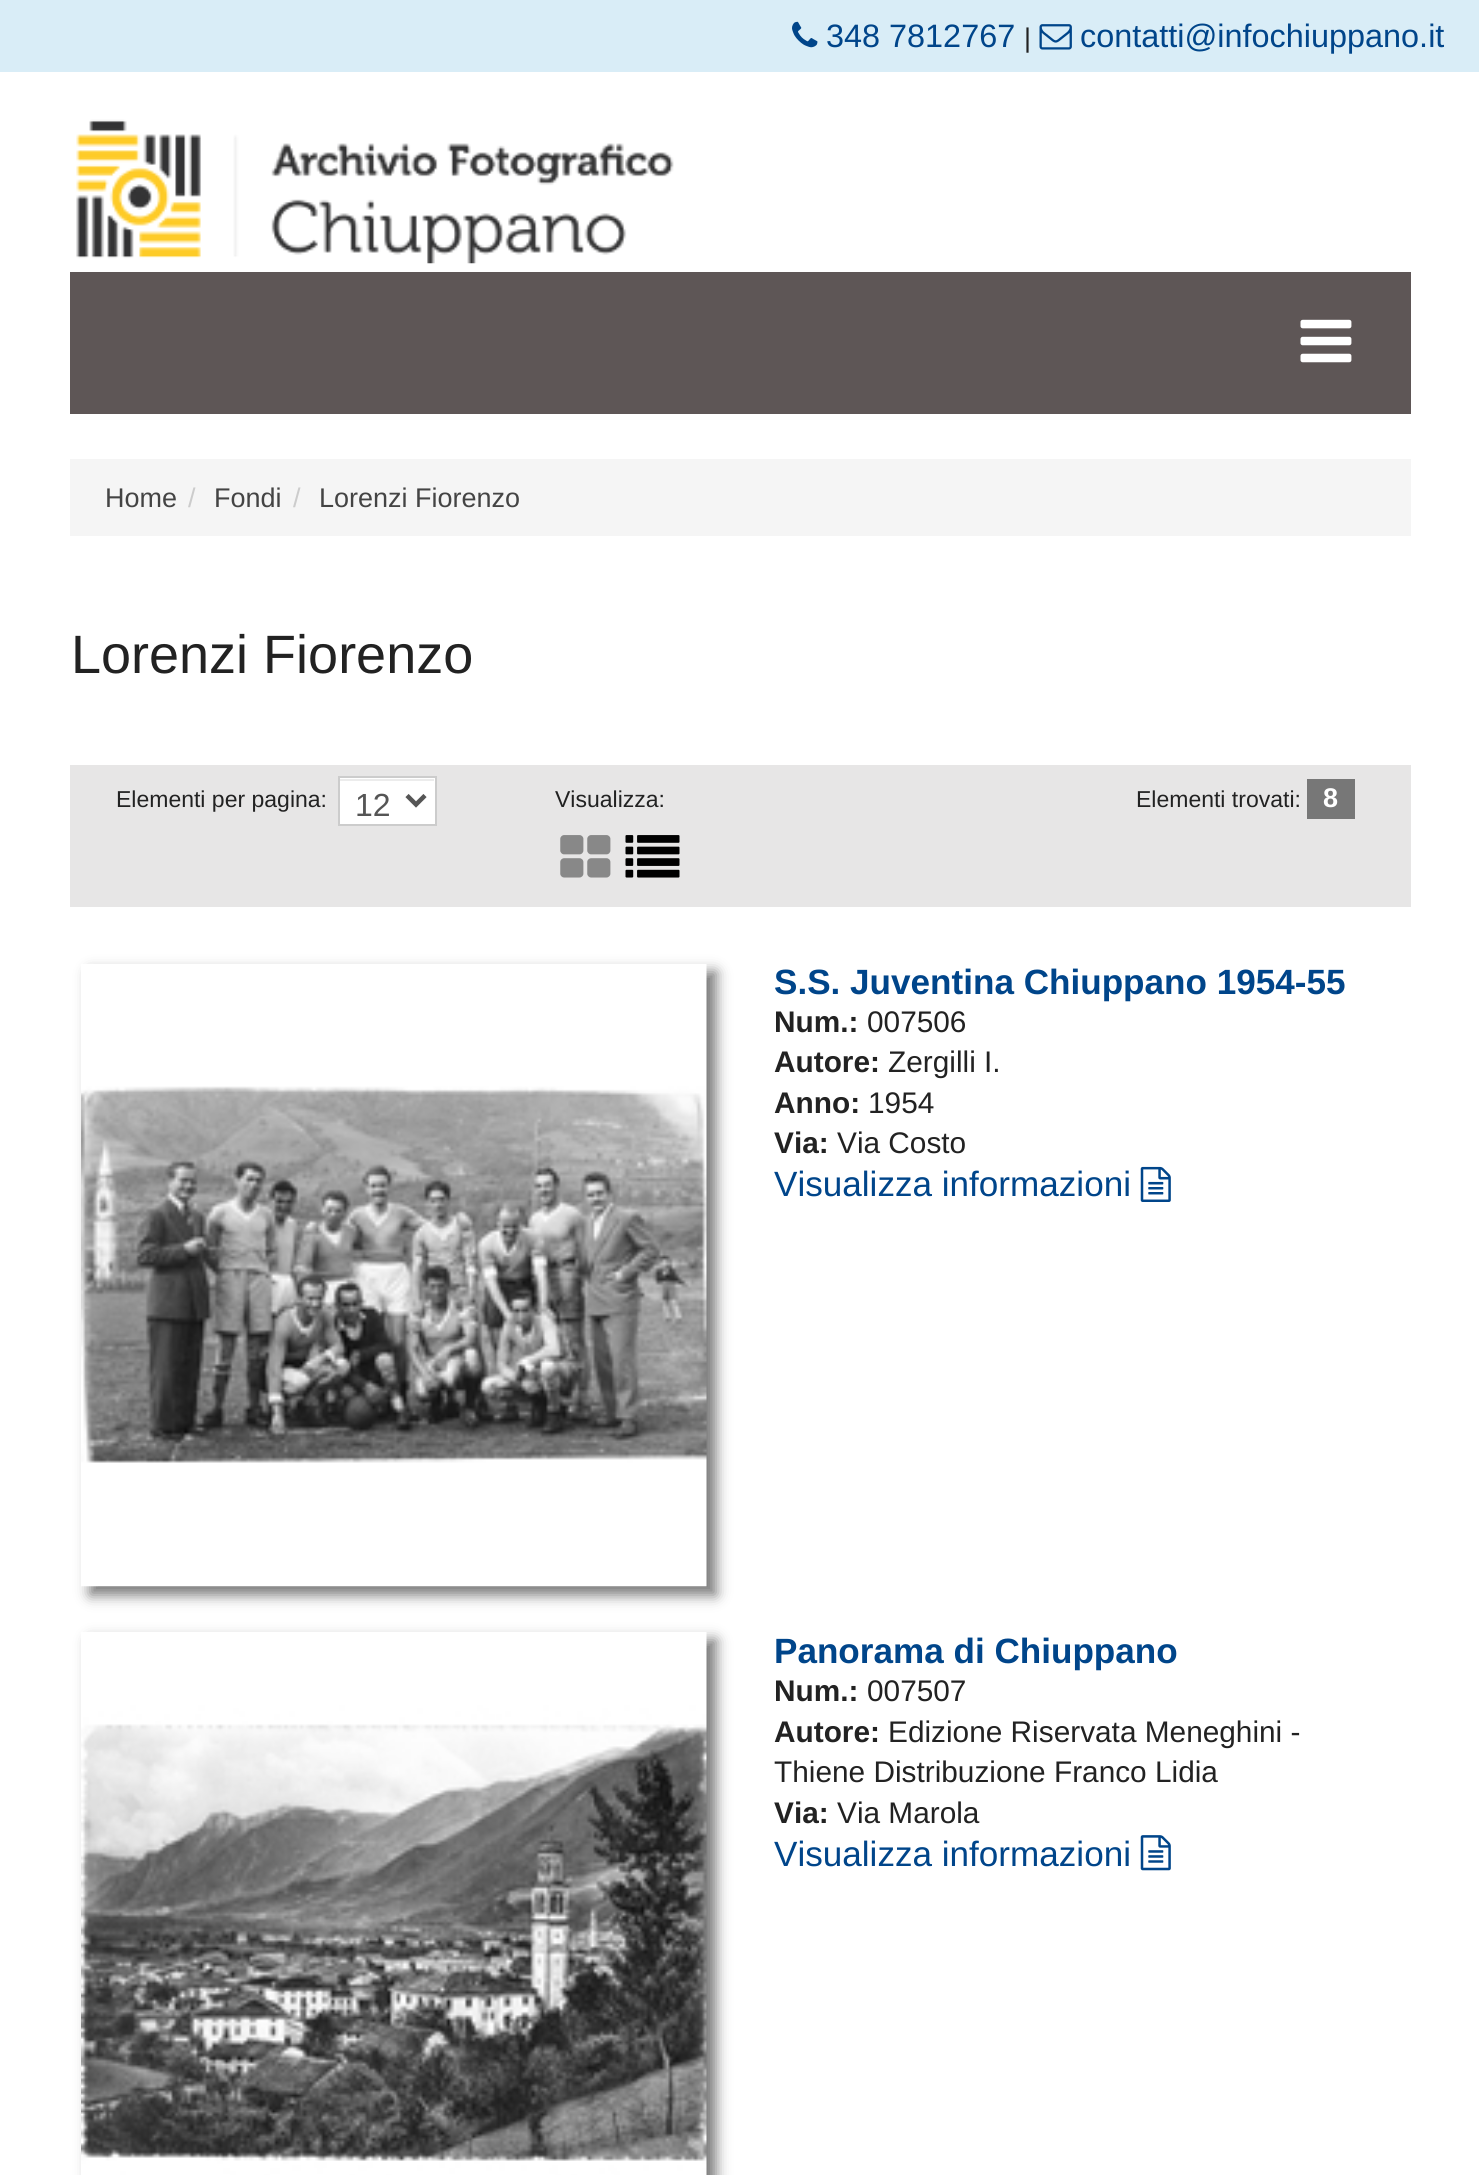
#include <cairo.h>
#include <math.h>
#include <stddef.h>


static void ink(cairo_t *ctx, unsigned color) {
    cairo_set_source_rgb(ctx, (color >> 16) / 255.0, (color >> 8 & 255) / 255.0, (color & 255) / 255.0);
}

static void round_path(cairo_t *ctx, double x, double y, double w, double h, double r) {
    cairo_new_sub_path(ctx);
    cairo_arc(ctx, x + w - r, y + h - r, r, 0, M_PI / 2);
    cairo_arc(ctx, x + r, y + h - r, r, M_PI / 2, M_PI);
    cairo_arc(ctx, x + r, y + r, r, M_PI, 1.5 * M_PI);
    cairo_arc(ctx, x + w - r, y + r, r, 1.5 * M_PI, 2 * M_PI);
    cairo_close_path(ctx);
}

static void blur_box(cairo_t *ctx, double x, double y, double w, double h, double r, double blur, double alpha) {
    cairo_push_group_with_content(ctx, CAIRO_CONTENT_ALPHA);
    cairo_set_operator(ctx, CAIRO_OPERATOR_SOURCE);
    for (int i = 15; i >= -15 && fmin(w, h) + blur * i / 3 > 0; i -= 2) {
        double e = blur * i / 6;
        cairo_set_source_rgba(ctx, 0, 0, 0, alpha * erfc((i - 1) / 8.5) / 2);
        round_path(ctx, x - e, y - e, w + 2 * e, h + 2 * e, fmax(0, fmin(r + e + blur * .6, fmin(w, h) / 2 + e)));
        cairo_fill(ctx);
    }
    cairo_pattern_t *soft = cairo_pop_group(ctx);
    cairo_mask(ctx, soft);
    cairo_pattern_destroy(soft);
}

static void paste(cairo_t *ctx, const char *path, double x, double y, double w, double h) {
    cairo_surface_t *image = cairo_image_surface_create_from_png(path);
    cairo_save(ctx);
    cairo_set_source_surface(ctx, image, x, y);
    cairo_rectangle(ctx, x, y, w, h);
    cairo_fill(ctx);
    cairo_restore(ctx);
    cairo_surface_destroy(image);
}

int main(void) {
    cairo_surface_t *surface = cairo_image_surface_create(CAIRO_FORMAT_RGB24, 1479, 2175);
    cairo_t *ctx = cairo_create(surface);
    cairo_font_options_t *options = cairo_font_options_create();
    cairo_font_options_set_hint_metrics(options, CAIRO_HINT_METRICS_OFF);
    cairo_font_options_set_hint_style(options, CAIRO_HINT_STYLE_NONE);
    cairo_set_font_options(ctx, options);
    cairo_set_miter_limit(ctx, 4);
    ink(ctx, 0xFFFFFF);
    cairo_paint(ctx);
    ink(ctx, 0xD9EDF7);
    cairo_rectangle(ctx, 0, 0, 1479, 72);
    cairo_fill(ctx);
    paste(ctx, "media/1.png", 792, 21, 26, 27);
    cairo_select_font_face(ctx, "Liberation Sans", CAIRO_FONT_SLANT_NORMAL, CAIRO_FONT_WEIGHT_NORMAL);
    cairo_set_font_size(ctx, 32.4);
    ink(ctx, 0x00458A);
    cairo_move_to(ctx, 826, 47);
    cairo_show_text(ctx, "348 7812767");
    cairo_set_font_size(ctx, 27);
    ink(ctx, 0x222222);
    cairo_move_to(ctx, 1024, 47);
    cairo_show_text(ctx, "|");
    paste(ctx, "media/2.png", 1039, 24, 33, 26);
    cairo_set_font_size(ctx, 32.4);
    ink(ctx, 0x00458A);
    cairo_move_to(ctx, 1080, 47);
    cairo_show_text(ctx, "contatti@infochiuppano.it");
    paste(ctx, "media/3.png", 76, 119, 598, 145);
    ink(ctx, 0x5E5656);
    cairo_rectangle(ctx, 70, 272, 1341, 142);
    cairo_fill(ctx);
    paste(ctx, "media/4.png", 1300, 319, 52, 44);
    ink(ctx, 0xF5F5F5);
    cairo_rectangle(ctx, 70, 459, 1341, 77);
    cairo_fill(ctx);
    cairo_set_font_size(ctx, 27);
    ink(ctx, 0x444444);
    cairo_move_to(ctx, 105, 507);
    cairo_show_text(ctx, "Home");
    ink(ctx, 0xCCCCCC);
    cairo_move_to(ctx, 188, 507);
    cairo_show_text(ctx, "/");
    ink(ctx, 0x444444);
    cairo_move_to(ctx, 214, 507);
    cairo_show_text(ctx, "Fondi");
    ink(ctx, 0xCCCCCC);
    cairo_move_to(ctx, 293, 507);
    cairo_show_text(ctx, "/");
    ink(ctx, 0x444444);
    cairo_move_to(ctx, 319, 507);
    cairo_show_text(ctx, "Lorenzi Fiorenzo");
    cairo_set_font_size(ctx, 54);
    ink(ctx, 0x222222);
    cairo_move_to(ctx, 71, 673);
    cairo_show_text(ctx, "Lorenzi Fiorenzo");
    ink(ctx, 0xE7E6E6);
    cairo_rectangle(ctx, 70, 765, 1341, 142);
    cairo_fill(ctx);
    cairo_set_font_size(ctx, 23);
    ink(ctx, 0x222222);
    cairo_move_to(ctx, 116, 807);
    cairo_show_text(ctx, "Elementi per pagina:");
    ink(ctx, 0xFFFFFF);
    cairo_rectangle(ctx, 340, 778, 95, 46);
    cairo_fill(ctx);
    ink(ctx, 0xECECEC);
    cairo_rectangle(ctx, 340, 779, 94, 2);
    cairo_fill(ctx);
    cairo_rectangle(ctx, 339, 777, 97, 48);
    ink(ctx, 0xCCCCCC);
    cairo_stroke(ctx);
    cairo_new_path(ctx);
    cairo_move_to(ctx, 407, 795.5);
    cairo_line_to(ctx, 416, 804.5);
    cairo_line_to(ctx, 425, 795.5);
    ink(ctx, 0x555555);
    cairo_set_line_width(ctx, 4.5);
    cairo_stroke(ctx);
    cairo_set_font_size(ctx, 32);
    cairo_move_to(ctx, 355, 816);
    cairo_show_text(ctx, "12");
    cairo_set_font_size(ctx, 23);
    ink(ctx, 0x222222);
    cairo_move_to(ctx, 555, 807);
    cairo_show_text(ctx, "Visualizza:");
    paste(ctx, "media/5.png", 560, 835, 51, 43);
    paste(ctx, "media/6.png", 625, 835, 55, 43);
    cairo_move_to(ctx, 1136, 807);
    cairo_show_text(ctx, "Elementi trovati:");
    ink(ctx, 0x777777);
    cairo_rectangle(ctx, 1307, 779, 48, 40);
    cairo_fill(ctx);
    cairo_select_font_face(ctx, "Liberation Sans", CAIRO_FONT_SLANT_NORMAL, CAIRO_FONT_WEIGHT_BOLD);
    cairo_set_font_size(ctx, 27);
    ink(ctx, 0xFFFFFF);
    cairo_move_to(ctx, 1323, 807);
    cairo_show_text(ctx, "8");
    ink(ctx, 0x777777);
    blur_box(ctx, 90, 972, 626, 623, 0, 7, 1);
    paste(ctx, "media/7.png", 81, 964, 626, 623);
    cairo_set_font_size(ctx, 35.1);
    ink(ctx, 0x00458A);
    cairo_move_to(ctx, 774, 994);
    cairo_show_text(ctx, "S.S. Juventina Chiuppano 1954-55");
    cairo_set_font_size(ctx, 29.8);
    ink(ctx, 0x222222);
    cairo_move_to(ctx, 774, 1032);
    cairo_show_text(ctx, "Num.:");
    cairo_select_font_face(ctx, "Liberation Sans", CAIRO_FONT_SLANT_NORMAL, CAIRO_FONT_WEIGHT_NORMAL);
    cairo_move_to(ctx, 867, 1032);
    cairo_show_text(ctx, "007506");
    cairo_select_font_face(ctx, "Liberation Sans", CAIRO_FONT_SLANT_NORMAL, CAIRO_FONT_WEIGHT_BOLD);
    cairo_move_to(ctx, 774, 1072);
    cairo_show_text(ctx, "Autore:");
    cairo_select_font_face(ctx, "Liberation Sans", CAIRO_FONT_SLANT_NORMAL, CAIRO_FONT_WEIGHT_NORMAL);
    cairo_move_to(ctx, 888, 1072);
    cairo_show_text(ctx, "Zergilli I.");
    cairo_select_font_face(ctx, "Liberation Sans", CAIRO_FONT_SLANT_NORMAL, CAIRO_FONT_WEIGHT_BOLD);
    cairo_move_to(ctx, 774, 1113);
    cairo_show_text(ctx, "Anno:");
    cairo_select_font_face(ctx, "Liberation Sans", CAIRO_FONT_SLANT_NORMAL, CAIRO_FONT_WEIGHT_NORMAL);
    cairo_move_to(ctx, 868, 1113);
    cairo_show_text(ctx, "1954");
    cairo_select_font_face(ctx, "Liberation Sans", CAIRO_FONT_SLANT_NORMAL, CAIRO_FONT_WEIGHT_BOLD);
    cairo_move_to(ctx, 774, 1153);
    cairo_show_text(ctx, "Via:");
    cairo_select_font_face(ctx, "Liberation Sans", CAIRO_FONT_SLANT_NORMAL, CAIRO_FONT_WEIGHT_NORMAL);
    cairo_move_to(ctx, 837, 1153);
    cairo_show_text(ctx, "Via Costo");
    cairo_set_font_size(ctx, 35.1);
    ink(ctx, 0x00458A);
    cairo_move_to(ctx, 774, 1196);
    cairo_show_text(ctx, "Visualizza informazioni");
    paste(ctx, "media/8.png", 1140, 1166, 31, 36);
    ink(ctx, 0x777777);
    blur_box(ctx, 90, 1640, 626, 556, 0, 7, 1);
    paste(ctx, "media/9.png", 81, 1632, 626, 543);
    cairo_select_font_face(ctx, "Liberation Sans", CAIRO_FONT_SLANT_NORMAL, CAIRO_FONT_WEIGHT_BOLD);
    ink(ctx, 0x00458A);
    cairo_move_to(ctx, 774, 1663);
    cairo_show_text(ctx, "Panorama di Chiuppano");
    cairo_set_font_size(ctx, 29.8);
    ink(ctx, 0x222222);
    cairo_move_to(ctx, 774, 1701);
    cairo_show_text(ctx, "Num.:");
    cairo_select_font_face(ctx, "Liberation Sans", CAIRO_FONT_SLANT_NORMAL, CAIRO_FONT_WEIGHT_NORMAL);
    cairo_move_to(ctx, 867, 1701);
    cairo_show_text(ctx, "007507");
    cairo_select_font_face(ctx, "Liberation Sans", CAIRO_FONT_SLANT_NORMAL, CAIRO_FONT_WEIGHT_BOLD);
    cairo_move_to(ctx, 774, 1742);
    cairo_show_text(ctx, "Autore:");
    cairo_select_font_face(ctx, "Liberation Sans", CAIRO_FONT_SLANT_NORMAL, CAIRO_FONT_WEIGHT_NORMAL);
    cairo_move_to(ctx, 888, 1742);
    cairo_show_text(ctx, "Edizione Riservata Meneghini -");
    cairo_move_to(ctx, 774, 1782);
    cairo_show_text(ctx, "Thiene Distribuzione Franco Lidia");
    cairo_select_font_face(ctx, "Liberation Sans", CAIRO_FONT_SLANT_NORMAL, CAIRO_FONT_WEIGHT_BOLD);
    cairo_move_to(ctx, 774, 1823);
    cairo_show_text(ctx, "Via:");
    cairo_select_font_face(ctx, "Liberation Sans", CAIRO_FONT_SLANT_NORMAL, CAIRO_FONT_WEIGHT_NORMAL);
    cairo_move_to(ctx, 837, 1823);
    cairo_show_text(ctx, "Via Marola");
    cairo_set_font_size(ctx, 35.1);
    ink(ctx, 0x00458A);
    cairo_move_to(ctx, 774, 1866);
    cairo_show_text(ctx, "Visualizza informazioni");
    paste(ctx, "media/10.png", 1140, 1835, 31, 36);
    cairo_surface_write_to_png(surface, "image.png");
    cairo_font_options_destroy(options);
    cairo_destroy(ctx);
    cairo_surface_destroy(surface);
    return 0;
}
